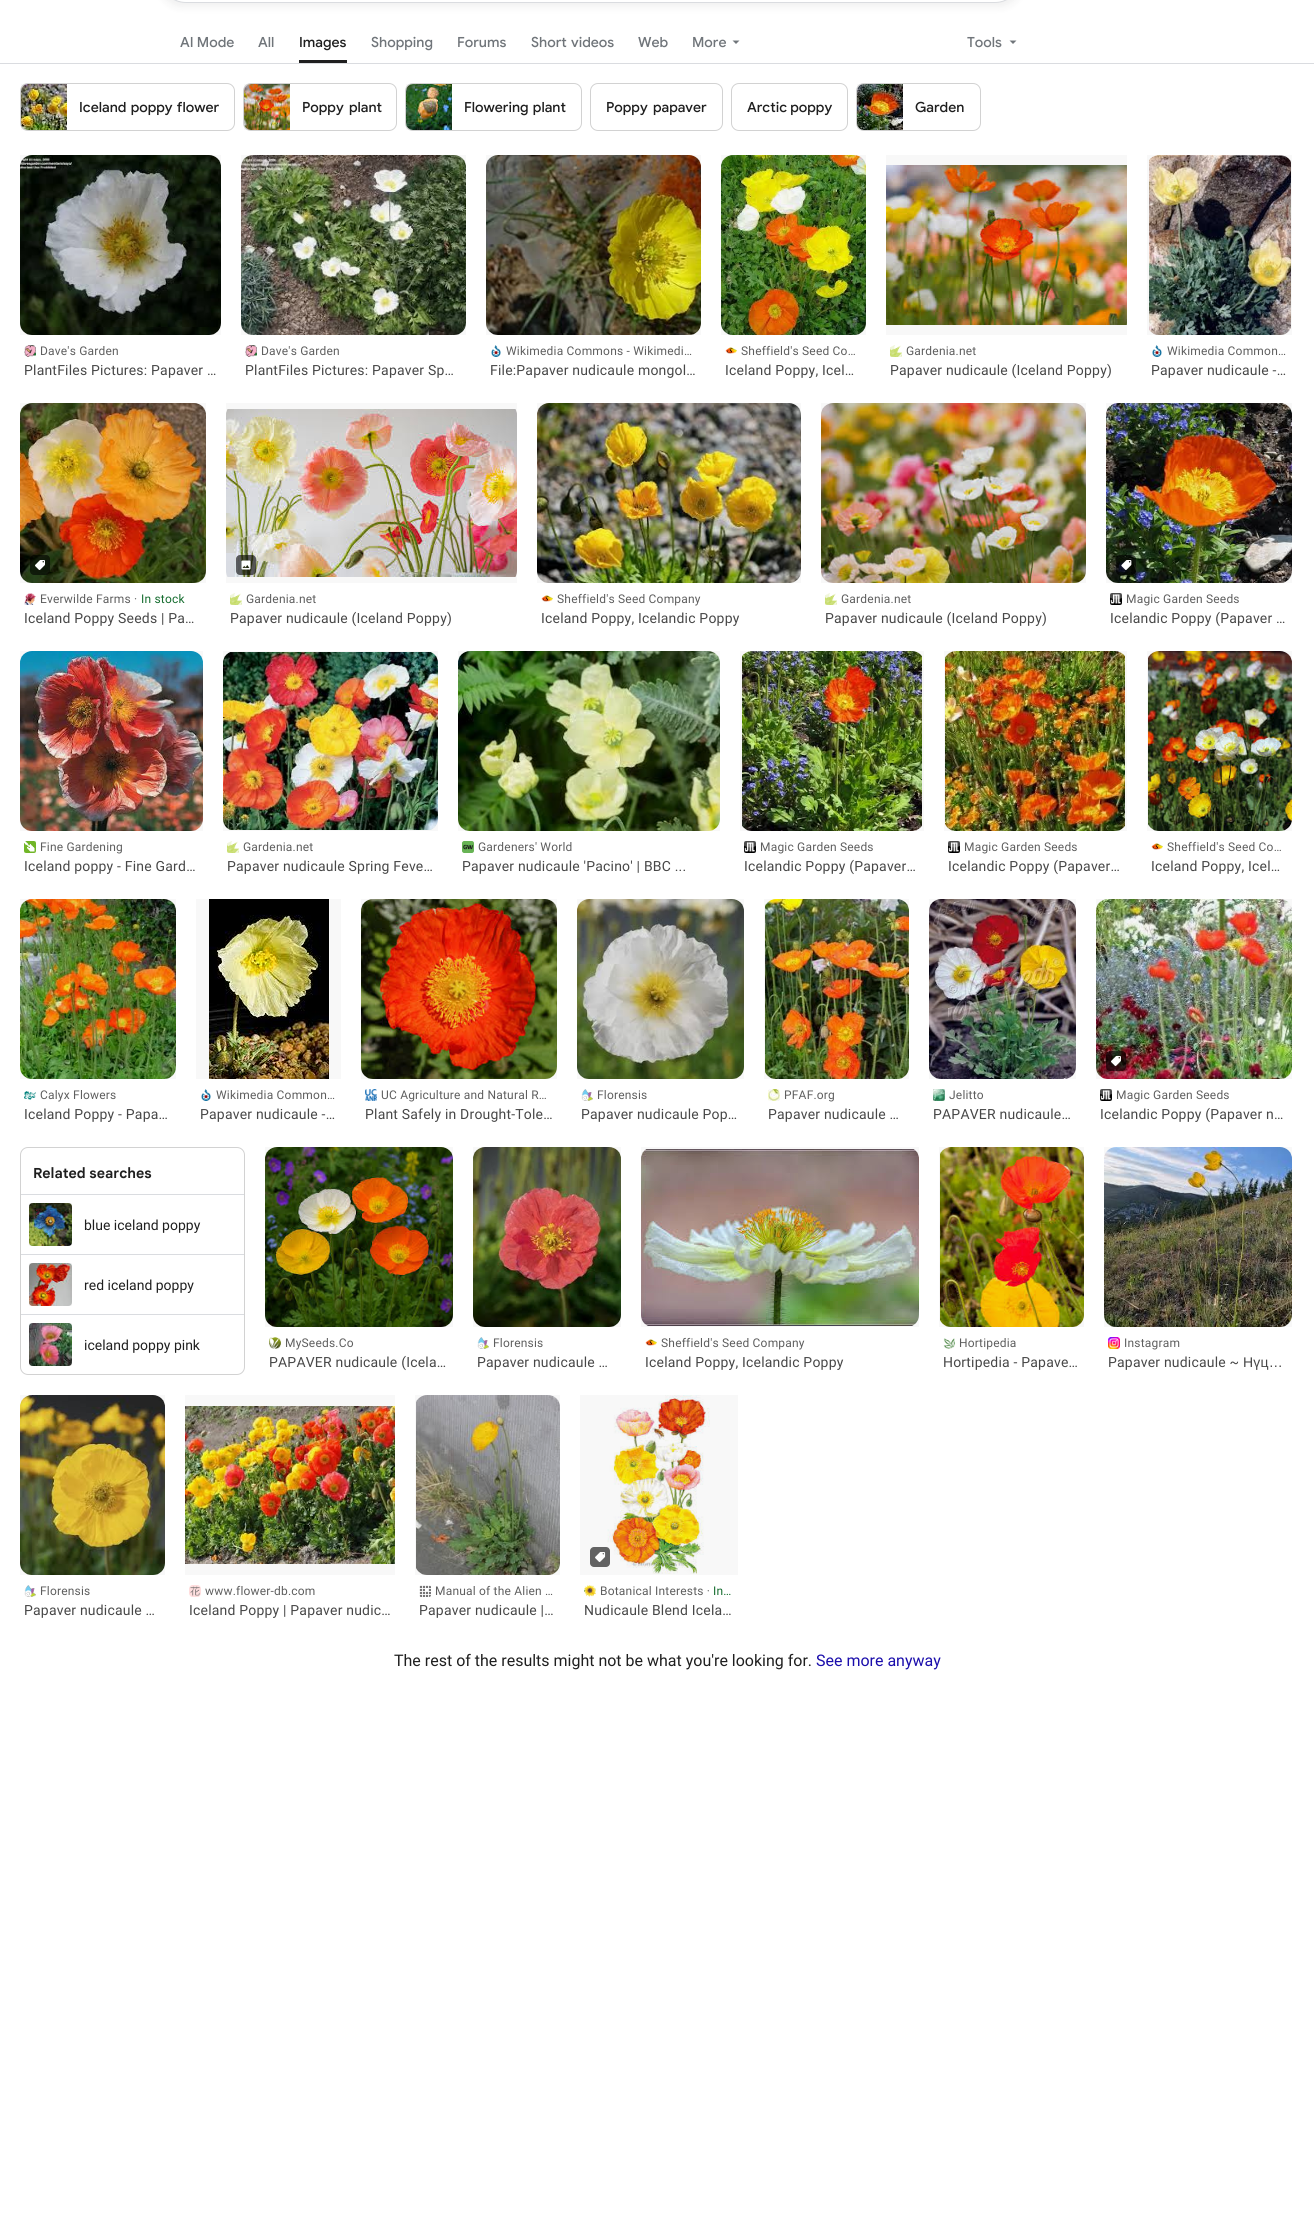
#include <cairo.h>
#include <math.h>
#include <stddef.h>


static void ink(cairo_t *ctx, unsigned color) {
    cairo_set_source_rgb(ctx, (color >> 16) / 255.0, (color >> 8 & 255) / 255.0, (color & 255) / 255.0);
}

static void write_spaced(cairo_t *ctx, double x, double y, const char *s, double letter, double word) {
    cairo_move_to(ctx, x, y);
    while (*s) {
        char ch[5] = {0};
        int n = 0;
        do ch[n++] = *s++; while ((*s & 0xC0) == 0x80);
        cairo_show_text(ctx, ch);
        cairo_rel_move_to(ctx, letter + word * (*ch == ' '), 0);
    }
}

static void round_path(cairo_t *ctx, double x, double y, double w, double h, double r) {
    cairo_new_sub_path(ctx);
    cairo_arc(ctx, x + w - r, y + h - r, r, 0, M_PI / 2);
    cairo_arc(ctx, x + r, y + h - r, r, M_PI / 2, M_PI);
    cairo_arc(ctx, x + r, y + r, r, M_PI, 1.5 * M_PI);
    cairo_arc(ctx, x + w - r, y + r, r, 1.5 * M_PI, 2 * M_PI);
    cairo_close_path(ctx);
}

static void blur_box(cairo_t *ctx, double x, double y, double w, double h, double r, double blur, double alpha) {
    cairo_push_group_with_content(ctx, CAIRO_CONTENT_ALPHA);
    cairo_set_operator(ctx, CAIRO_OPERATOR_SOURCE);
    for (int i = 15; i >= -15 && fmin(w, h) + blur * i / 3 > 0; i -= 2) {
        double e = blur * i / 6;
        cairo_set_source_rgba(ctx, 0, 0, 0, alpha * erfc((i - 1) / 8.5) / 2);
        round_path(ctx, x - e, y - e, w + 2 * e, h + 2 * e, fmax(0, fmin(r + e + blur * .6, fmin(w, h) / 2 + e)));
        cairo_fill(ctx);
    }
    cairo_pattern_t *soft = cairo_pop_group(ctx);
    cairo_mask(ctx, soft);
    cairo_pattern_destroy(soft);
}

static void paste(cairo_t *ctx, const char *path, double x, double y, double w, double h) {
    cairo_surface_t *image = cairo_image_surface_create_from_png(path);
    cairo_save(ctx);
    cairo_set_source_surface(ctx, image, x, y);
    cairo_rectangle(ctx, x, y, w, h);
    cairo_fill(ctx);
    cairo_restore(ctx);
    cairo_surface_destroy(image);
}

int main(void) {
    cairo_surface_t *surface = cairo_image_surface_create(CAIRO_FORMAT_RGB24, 1314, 2236);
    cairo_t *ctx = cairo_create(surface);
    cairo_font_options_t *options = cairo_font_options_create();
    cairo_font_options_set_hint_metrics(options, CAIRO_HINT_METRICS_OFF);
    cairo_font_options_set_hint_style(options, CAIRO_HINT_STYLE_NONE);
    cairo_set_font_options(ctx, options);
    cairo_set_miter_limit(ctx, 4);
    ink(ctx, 0xFFFFFF);
    cairo_paint(ctx);
    ink(ctx, 0x1F1F1F);
    blur_box(ctx, 160, -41, 861, 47, 26, 5, 0.08);
    ink(ctx, 0xFFFFFF);
    round_path(ctx, 160.5, -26.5, 860, 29, 25.5);
    cairo_fill_preserve(ctx);
    ink(ctx, 0xDADCE0);
    cairo_set_line_width(ctx, 1);
    cairo_stroke(ctx);
    cairo_select_font_face(ctx, "Google Sans Medium", CAIRO_FONT_SLANT_NORMAL, CAIRO_FONT_WEIGHT_NORMAL);
    cairo_set_font_size(ctx, 14);
    ink(ctx, 0x70757A);
    cairo_move_to(ctx, 180, 47);
    cairo_show_text(ctx, "AI Mode");
    cairo_move_to(ctx, 258, 47);
    cairo_show_text(ctx, "All");
    ink(ctx, 0x1F1F1F);
    cairo_rectangle(ctx, 299, 60, 48, 3);
    cairo_fill(ctx);
    cairo_move_to(ctx, 299, 47);
    cairo_show_text(ctx, "Images");
    ink(ctx, 0x70757A);
    cairo_move_to(ctx, 371, 47);
    cairo_show_text(ctx, "Shopping");
    cairo_move_to(ctx, 457, 47);
    cairo_show_text(ctx, "Forums");
    write_spaced(ctx, 531, 47, "Short videos", 0, 1);
    cairo_move_to(ctx, 638, 47);
    cairo_show_text(ctx, "Web");
    cairo_move_to(ctx, 692, 47);
    cairo_show_text(ctx, "More");
    cairo_new_path(ctx);
    cairo_move_to(ctx, 732.5, 40.5);
    cairo_line_to(ctx, 736, 44);
    cairo_line_to(ctx, 739.5, 40.5);
    cairo_close_path(ctx);
    cairo_fill(ctx);
    cairo_move_to(ctx, 967, 47);
    cairo_show_text(ctx, "Tools");
    cairo_new_path(ctx);
    cairo_move_to(ctx, 1009.5, 40.5);
    cairo_line_to(ctx, 1013, 44);
    cairo_line_to(ctx, 1016.5, 40.5);
    cairo_close_path(ctx);
    cairo_fill(ctx);
    ink(ctx, 0xDADCE0);
    cairo_rectangle(ctx, 0, 63, 1314, 1);
    cairo_fill(ctx);
    round_path(ctx, 20.5, 83.5, 214, 47, 7.5);
    ink(ctx, 0xD2D2D2);
    cairo_stroke(ctx);
    paste(ctx, "media/1.png", 21, 84, 46, 46);
    cairo_set_source_rgba(ctx, 0, 0, 0, 0.03);
    cairo_rectangle(ctx, 21, 84, 46, 46);
    cairo_fill(ctx);
    ink(ctx, 0x1F1F1F);
    write_spaced(ctx, 79, 112, "Iceland poppy flower", 0, 1);
    round_path(ctx, 243.5, 83.5, 153, 47, 7.5);
    ink(ctx, 0xD2D2D2);
    cairo_stroke(ctx);
    paste(ctx, "media/2.png", 244, 84, 46, 46);
    cairo_set_source_rgba(ctx, 0, 0, 0, 0.03);
    cairo_rectangle(ctx, 244, 84, 46, 46);
    cairo_fill(ctx);
    ink(ctx, 0x1F1F1F);
    write_spaced(ctx, 302, 112, "Poppy plant", 0, 2);
    round_path(ctx, 405.5, 83.5, 176, 47, 7.5);
    ink(ctx, 0xD2D2D2);
    cairo_stroke(ctx);
    paste(ctx, "media/3.png", 406, 84, 46, 46);
    cairo_set_source_rgba(ctx, 0, 0, 0, 0.03);
    cairo_rectangle(ctx, 406, 84, 46, 46);
    cairo_fill(ctx);
    ink(ctx, 0x1F1F1F);
    write_spaced(ctx, 464, 112, "Flowering plant", 0, 1);
    round_path(ctx, 590.5, 83.5, 132, 47, 7.5);
    ink(ctx, 0xD2D2D2);
    cairo_stroke(ctx);
    ink(ctx, 0x1F1F1F);
    write_spaced(ctx, 606, 112, "Poppy papaver", 0, 2);
    round_path(ctx, 731.5, 83.5, 116, 47, 7.5);
    ink(ctx, 0xD2D2D2);
    cairo_stroke(ctx);
    ink(ctx, 0x1F1F1F);
    cairo_move_to(ctx, 747, 112);
    cairo_show_text(ctx, "Arctic poppy");
    round_path(ctx, 856.5, 83.5, 124, 47, 7.5);
    ink(ctx, 0xD2D2D2);
    cairo_stroke(ctx);
    paste(ctx, "media/4.png", 857, 84, 46, 46);
    cairo_set_source_rgba(ctx, 0, 0, 0, 0.03);
    cairo_rectangle(ctx, 857, 84, 46, 46);
    cairo_fill(ctx);
    ink(ctx, 0x1F1F1F);
    cairo_move_to(ctx, 915, 112);
    cairo_show_text(ctx, "Garden");
    paste(ctx, "media/5.png", 20, 155, 201, 180);
    cairo_set_source_rgba(ctx, 0, 0, 0, 0.03);
    cairo_rectangle(ctx, 20, 155, 201, 180);
    cairo_fill(ctx);
    paste(ctx, "media/6.png", 24, 345, 12, 12);
    cairo_select_font_face(ctx, "Roboto", CAIRO_FONT_SLANT_NORMAL, CAIRO_FONT_WEIGHT_NORMAL);
    cairo_set_font_size(ctx, 12);
    ink(ctx, 0x5E5E5E);
    write_spaced(ctx, 40, 355, "Dave's Garden", 0.2, 0);
    cairo_set_font_size(ctx, 14);
    ink(ctx, 0x474747);
    write_spaced(ctx, 24, 375, "PlantFiles Pictures: Papaver …", 0.2, 0);
    paste(ctx, "media/7.png", 241, 155, 225, 180);
    cairo_set_source_rgba(ctx, 0, 0, 0, 0.03);
    cairo_rectangle(ctx, 241, 155, 225, 180);
    cairo_fill(ctx);
    paste(ctx, "media/8.png", 245, 345, 12, 12);
    cairo_set_font_size(ctx, 12);
    ink(ctx, 0x5E5E5E);
    write_spaced(ctx, 261, 355, "Dave's Garden", 0.2, 0);
    cairo_set_font_size(ctx, 14);
    ink(ctx, 0x474747);
    write_spaced(ctx, 245, 375, "PlantFiles Pictures: Papaver Sp…", 0.2, 0);
    paste(ctx, "media/9.png", 486, 155, 215, 180);
    cairo_set_source_rgba(ctx, 0, 0, 0, 0.03);
    cairo_rectangle(ctx, 486, 155, 215, 180);
    cairo_fill(ctx);
    paste(ctx, "media/10.png", 491, 345, 10, 12);
    cairo_set_font_size(ctx, 12);
    ink(ctx, 0x5E5E5E);
    write_spaced(ctx, 506, 355, "Wikimedia Commons - Wikimedi…", 0.2, 0);
    cairo_set_font_size(ctx, 14);
    ink(ctx, 0x474747);
    write_spaced(ctx, 490, 375, "File:Papaver nudicaule mongol…", 0.2, 0);
    paste(ctx, "media/11.png", 721, 155, 145, 180);
    cairo_set_source_rgba(ctx, 0, 0, 0, 0.03);
    cairo_rectangle(ctx, 721, 155, 145, 180);
    cairo_fill(ctx);
    paste(ctx, "media/12.png", 725, 347, 12, 7);
    cairo_set_font_size(ctx, 12);
    ink(ctx, 0x5E5E5E);
    write_spaced(ctx, 741, 355, "Sheffield's Seed Co…", 0.2, 0);
    cairo_set_font_size(ctx, 14);
    ink(ctx, 0x474747);
    write_spaced(ctx, 725, 375, "Iceland Poppy, Icel…", 0.2, 0);
    paste(ctx, "media/13.png", 886, 165, 241, 160);
    cairo_set_source_rgba(ctx, 0, 0, 0, 0.03);
    cairo_rectangle(ctx, 886, 155, 241, 180);
    cairo_fill(ctx);
    paste(ctx, "media/14.png", 890, 345, 12, 12);
    cairo_set_font_size(ctx, 12);
    ink(ctx, 0x5E5E5E);
    write_spaced(ctx, 906, 355, "Gardenia.net", 0.2, 0);
    cairo_set_font_size(ctx, 14);
    ink(ctx, 0x474747);
    write_spaced(ctx, 890, 375, "Papaver nudicaule (Iceland Poppy)", 0.2, 0);
    paste(ctx, "media/15.png", 1149, 155, 142, 180);
    cairo_set_source_rgba(ctx, 0, 0, 0, 0.03);
    cairo_rectangle(ctx, 1147, 155, 145, 180);
    cairo_fill(ctx);
    paste(ctx, "media/16.png", 1152, 345, 10, 12);
    cairo_set_font_size(ctx, 12);
    ink(ctx, 0x5E5E5E);
    write_spaced(ctx, 1167, 355, "Wikimedia Common…", 0.2, 0);
    cairo_set_font_size(ctx, 14);
    ink(ctx, 0x474747);
    write_spaced(ctx, 1151, 375, "Papaver nudicaule -…", 0.2, 0);
    paste(ctx, "media/17.png", 20, 403, 186, 180);
    cairo_set_source_rgba(ctx, 0, 0, 0, 0.03);
    cairo_rectangle(ctx, 20, 403, 186, 180);
    cairo_fill(ctx);
    cairo_set_source_rgba(ctx, 0, 0, 0, 0.6);
    round_path(ctx, 30, 555, 20, 20, 4);
    cairo_fill(ctx);
    paste(ctx, "media/18.png", 35, 560, 10, 10);
    paste(ctx, "media/19.png", 24, 593, 12, 12);
    cairo_set_font_size(ctx, 12);
    ink(ctx, 0x5E5E5E);
    write_spaced(ctx, 40, 603, "Everwilde Farms ·", 0.2, 0);
    ink(ctx, 0x146C2E);
    write_spaced(ctx, 141, 603, "In stock", 0.2, 0);
    cairo_set_font_size(ctx, 14);
    ink(ctx, 0x474747);
    write_spaced(ctx, 24, 623, "Iceland Poppy Seeds | Pa…", 0.2, 0);
    paste(ctx, "media/20.png", 226, 409, 291, 168);
    cairo_set_source_rgba(ctx, 0, 0, 0, 0.03);
    cairo_rectangle(ctx, 226, 403, 291, 180);
    cairo_fill(ctx);
    cairo_set_source_rgba(ctx, 0, 0, 0, 0.6);
    round_path(ctx, 236, 555, 20, 20, 4);
    cairo_fill(ctx);
    paste(ctx, "media/21.png", 241, 560, 10, 10);
    paste(ctx, "media/22.png", 230, 593, 12, 12);
    cairo_set_font_size(ctx, 12);
    ink(ctx, 0x5E5E5E);
    write_spaced(ctx, 246, 603, "Gardenia.net", 0.2, 0);
    cairo_set_font_size(ctx, 14);
    ink(ctx, 0x474747);
    write_spaced(ctx, 230, 623, "Papaver nudicaule (Iceland Poppy)", 0.2, 0);
    paste(ctx, "media/23.png", 537, 403, 264, 180);
    cairo_set_source_rgba(ctx, 0, 0, 0, 0.03);
    cairo_rectangle(ctx, 537, 403, 264, 180);
    cairo_fill(ctx);
    paste(ctx, "media/24.png", 541, 595, 12, 7);
    cairo_set_font_size(ctx, 12);
    ink(ctx, 0x5E5E5E);
    write_spaced(ctx, 557, 603, "Sheffield's Seed Company", 0.2, 0);
    cairo_set_font_size(ctx, 14);
    ink(ctx, 0x474747);
    write_spaced(ctx, 541, 623, "Iceland Poppy, Icelandic Poppy", 0.2, 0);
    paste(ctx, "media/25.png", 821, 403, 265, 180);
    cairo_set_source_rgba(ctx, 0, 0, 0, 0.03);
    cairo_rectangle(ctx, 821, 403, 265, 180);
    cairo_fill(ctx);
    paste(ctx, "media/26.png", 825, 593, 12, 12);
    cairo_set_font_size(ctx, 12);
    ink(ctx, 0x5E5E5E);
    write_spaced(ctx, 841, 603, "Gardenia.net", 0.2, 0);
    cairo_set_font_size(ctx, 14);
    ink(ctx, 0x474747);
    write_spaced(ctx, 825, 623, "Papaver nudicaule (Iceland Poppy)", 0.2, 0);
    paste(ctx, "media/27.png", 1106, 403, 186, 180);
    cairo_set_source_rgba(ctx, 0, 0, 0, 0.03);
    cairo_rectangle(ctx, 1106, 403, 186, 180);
    cairo_fill(ctx);
    cairo_set_source_rgba(ctx, 0, 0, 0, 0.6);
    round_path(ctx, 1116, 555, 20, 20, 4);
    cairo_fill(ctx);
    paste(ctx, "media/28.png", 1121, 560, 11, 10);
    paste(ctx, "media/29.png", 1110, 593, 12, 12);
    cairo_set_font_size(ctx, 12);
    ink(ctx, 0x5E5E5E);
    write_spaced(ctx, 1126, 603, "Magic Garden Seeds", 0.2, 0);
    cairo_set_font_size(ctx, 14);
    ink(ctx, 0x474747);
    write_spaced(ctx, 1110, 623, "Icelandic Poppy (Papaver …", 0.2, 0);
    paste(ctx, "media/30.png", 20, 651, 183, 180);
    cairo_set_source_rgba(ctx, 0, 0, 0, 0.03);
    cairo_rectangle(ctx, 20, 651, 183, 180);
    cairo_fill(ctx);
    paste(ctx, "media/31.png", 24, 841, 12, 12);
    cairo_set_font_size(ctx, 12);
    ink(ctx, 0x5E5E5E);
    write_spaced(ctx, 40, 851, "Fine Gardening", 0.2, 0);
    cairo_set_font_size(ctx, 14);
    ink(ctx, 0x474747);
    write_spaced(ctx, 24, 871, "Iceland poppy - Fine Gard…", 0.2, 0);
    paste(ctx, "media/32.png", 223, 652, 215, 178);
    cairo_set_source_rgba(ctx, 0, 0, 0, 0.03);
    cairo_rectangle(ctx, 223, 651, 215, 180);
    cairo_fill(ctx);
    paste(ctx, "media/22.png", 227, 841, 12, 12);
    cairo_set_font_size(ctx, 12);
    ink(ctx, 0x5E5E5E);
    write_spaced(ctx, 243, 851, "Gardenia.net", 0.2, 0);
    cairo_set_font_size(ctx, 14);
    ink(ctx, 0x474747);
    write_spaced(ctx, 227, 871, "Papaver nudicaule Spring Feve…", 0.2, 0);
    paste(ctx, "media/33.png", 458, 651, 262, 180);
    cairo_set_source_rgba(ctx, 0, 0, 0, 0.03);
    cairo_rectangle(ctx, 458, 651, 262, 180);
    cairo_fill(ctx);
    paste(ctx, "media/34.png", 462, 841, 12, 12);
    cairo_set_font_size(ctx, 12);
    ink(ctx, 0x5E5E5E);
    write_spaced(ctx, 478, 851, "Gardeners' World", 0.2, 0);
    cairo_set_font_size(ctx, 14);
    ink(ctx, 0x474747);
    write_spaced(ctx, 462, 871, "Papaver nudicaule 'Pacino' | BBC ...", 0.2, 0);
    paste(ctx, "media/35.png", 742, 651, 180, 180);
    cairo_set_source_rgba(ctx, 0, 0, 0, 0.03);
    cairo_rectangle(ctx, 740, 651, 184, 180);
    cairo_fill(ctx);
    paste(ctx, "media/29.png", 744, 841, 12, 12);
    cairo_set_font_size(ctx, 12);
    ink(ctx, 0x5E5E5E);
    write_spaced(ctx, 760, 851, "Magic Garden Seeds", 0.2, 0);
    cairo_set_font_size(ctx, 14);
    ink(ctx, 0x474747);
    write_spaced(ctx, 744, 871, "Icelandic Poppy (Papaver…", 0.2, 0);
    paste(ctx, "media/36.png", 945, 651, 180, 180);
    cairo_set_source_rgba(ctx, 0, 0, 0, 0.03);
    cairo_rectangle(ctx, 944, 651, 183, 180);
    cairo_fill(ctx);
    paste(ctx, "media/37.png", 948, 841, 12, 12);
    cairo_set_font_size(ctx, 12);
    ink(ctx, 0x5E5E5E);
    write_spaced(ctx, 964, 851, "Magic Garden Seeds", 0.2, 0);
    cairo_set_font_size(ctx, 14);
    ink(ctx, 0x474747);
    write_spaced(ctx, 948, 871, "Icelandic Poppy (Papaver…", 0.2, 0);
    paste(ctx, "media/38.png", 1148, 651, 144, 180);
    cairo_set_source_rgba(ctx, 0, 0, 0, 0.03);
    cairo_rectangle(ctx, 1147, 651, 145, 180);
    cairo_fill(ctx);
    paste(ctx, "media/24.png", 1151, 843, 12, 7);
    cairo_set_font_size(ctx, 12);
    ink(ctx, 0x5E5E5E);
    write_spaced(ctx, 1167, 851, "Sheffield's Seed Co…", 0.2, 0);
    cairo_set_font_size(ctx, 14);
    ink(ctx, 0x474747);
    write_spaced(ctx, 1151, 871, "Iceland Poppy, Icel…", 0.2, 0);
    paste(ctx, "media/39.png", 20, 899, 156, 180);
    cairo_set_source_rgba(ctx, 0, 0, 0, 0.03);
    cairo_rectangle(ctx, 20, 899, 156, 180);
    cairo_fill(ctx);
    paste(ctx, "media/40.png", 24, 1091, 12, 9);
    cairo_set_font_size(ctx, 12);
    ink(ctx, 0x5E5E5E);
    write_spaced(ctx, 40, 1099, "Calyx Flowers", 0.2, 0);
    cairo_set_font_size(ctx, 14);
    ink(ctx, 0x474747);
    write_spaced(ctx, 24, 1119, "Iceland Poppy - Papa…", 0.2, 0);
    paste(ctx, "media/41.png", 209, 899, 120, 180);
    cairo_set_source_rgba(ctx, 0, 0, 0, 0.03);
    cairo_rectangle(ctx, 196, 899, 145, 180);
    cairo_fill(ctx);
    paste(ctx, "media/10.png", 201, 1089, 10, 12);
    cairo_set_font_size(ctx, 12);
    ink(ctx, 0x5E5E5E);
    write_spaced(ctx, 216, 1099, "Wikimedia Common…", 0.2, 0);
    cairo_set_font_size(ctx, 14);
    ink(ctx, 0x474747);
    write_spaced(ctx, 200, 1119, "Papaver nudicaule -…", 0.2, 0);
    paste(ctx, "media/42.png", 361, 899, 196, 180);
    cairo_set_source_rgba(ctx, 0, 0, 0, 0.03);
    cairo_rectangle(ctx, 361, 899, 196, 180);
    cairo_fill(ctx);
    paste(ctx, "media/43.png", 365, 1089, 12, 12);
    cairo_set_font_size(ctx, 12);
    ink(ctx, 0x5E5E5E);
    write_spaced(ctx, 381, 1099, "UC Agriculture and Natural R…", 0.2, 0);
    cairo_set_font_size(ctx, 14);
    ink(ctx, 0x474747);
    write_spaced(ctx, 365, 1119, "Plant Safely in Drought-Tole…", 0.2, 0);
    paste(ctx, "media/44.png", 577, 899, 167, 180);
    cairo_set_source_rgba(ctx, 0, 0, 0, 0.03);
    cairo_rectangle(ctx, 577, 899, 167, 180);
    cairo_fill(ctx);
    paste(ctx, "media/45.png", 581, 1089, 12, 12);
    cairo_set_font_size(ctx, 12);
    ink(ctx, 0x5E5E5E);
    write_spaced(ctx, 597, 1099, "Florensis", 0.2, 0);
    cairo_set_font_size(ctx, 14);
    ink(ctx, 0x474747);
    write_spaced(ctx, 581, 1119, "Papaver nudicaule Pop…", 0.2, 0);
    paste(ctx, "media/46.png", 765, 899, 144, 180);
    cairo_set_source_rgba(ctx, 0, 0, 0, 0.03);
    cairo_rectangle(ctx, 764, 899, 145, 180);
    cairo_fill(ctx);
    paste(ctx, "media/47.png", 768, 1089, 12, 12);
    cairo_set_font_size(ctx, 12);
    ink(ctx, 0x5E5E5E);
    write_spaced(ctx, 784, 1099, "PFAF.org", 0.2, 0);
    cairo_set_font_size(ctx, 14);
    ink(ctx, 0x474747);
    write_spaced(ctx, 768, 1119, "Papaver nudicaule …", 0.2, 0);
    paste(ctx, "media/48.png", 929, 899, 147, 180);
    cairo_set_source_rgba(ctx, 0, 0, 0, 0.03);
    cairo_rectangle(ctx, 929, 899, 147, 180);
    cairo_fill(ctx);
    paste(ctx, "media/49.png", 933, 1089, 12, 12);
    cairo_set_font_size(ctx, 12);
    ink(ctx, 0x5E5E5E);
    write_spaced(ctx, 949, 1099, "Jelitto", 0.2, 0);
    cairo_set_font_size(ctx, 14);
    ink(ctx, 0x474747);
    write_spaced(ctx, 933, 1119, "PAPAVER nudicaule…", 0.2, 0);
    paste(ctx, "media/50.png", 1096, 899, 196, 180);
    cairo_set_source_rgba(ctx, 0, 0, 0, 0.03);
    cairo_rectangle(ctx, 1096, 899, 196, 180);
    cairo_fill(ctx);
    cairo_set_source_rgba(ctx, 0, 0, 0, 0.6);
    round_path(ctx, 1106, 1051, 20, 20, 4);
    cairo_fill(ctx);
    paste(ctx, "media/51.png", 1111, 1056, 10, 10);
    paste(ctx, "media/37.png", 1100, 1089, 12, 12);
    cairo_set_font_size(ctx, 12);
    ink(ctx, 0x5E5E5E);
    write_spaced(ctx, 1116, 1099, "Magic Garden Seeds", 0.2, 0);
    cairo_set_font_size(ctx, 14);
    ink(ctx, 0x474747);
    write_spaced(ctx, 1100, 1119, "Icelandic Poppy (Papaver n…", 0.2, 0);
    round_path(ctx, 20.5, 1147.5, 224, 227, 7.5);
    ink(ctx, 0xD2D2D2);
    cairo_stroke(ctx);
    cairo_select_font_face(ctx, "Google Sans", CAIRO_FONT_SLANT_NORMAL, CAIRO_FONT_WEIGHT_BOLD);
    ink(ctx, 0x1F1F1F);
    cairo_move_to(ctx, 33, 1178);
    cairo_show_text(ctx, "Related searches");
    ink(ctx, 0xDADCE0);
    cairo_rectangle(ctx, 21, 1194, 223, 1);
    cairo_fill(ctx);
    paste(ctx, "media/52.png", 29, 1203, 43, 43);
    cairo_set_source_rgba(ctx, 0, 0, 0, 0.03);
    cairo_rectangle(ctx, 29, 1203, 43, 43);
    cairo_fill(ctx);
    cairo_select_font_face(ctx, "Roboto", CAIRO_FONT_SLANT_NORMAL, CAIRO_FONT_WEIGHT_NORMAL);
    ink(ctx, 0x1F1F1F);
    cairo_move_to(ctx, 84, 1230);
    cairo_show_text(ctx, "blue iceland poppy");
    ink(ctx, 0xDADCE0);
    cairo_rectangle(ctx, 21, 1254, 223, 1);
    cairo_fill(ctx);
    paste(ctx, "media/53.png", 29, 1263, 43, 43);
    cairo_set_source_rgba(ctx, 0, 0, 0, 0.03);
    cairo_rectangle(ctx, 29, 1263, 43, 43);
    cairo_fill(ctx);
    ink(ctx, 0x1F1F1F);
    cairo_move_to(ctx, 84, 1290);
    cairo_show_text(ctx, "red iceland poppy");
    ink(ctx, 0xDADCE0);
    cairo_rectangle(ctx, 21, 1314, 223, 1);
    cairo_fill(ctx);
    paste(ctx, "media/54.png", 29, 1323, 43, 43);
    cairo_set_source_rgba(ctx, 0, 0, 0, 0.03);
    cairo_rectangle(ctx, 29, 1323, 43, 43);
    cairo_fill(ctx);
    ink(ctx, 0x1F1F1F);
    cairo_move_to(ctx, 84, 1350);
    cairo_show_text(ctx, "iceland poppy pink");
    paste(ctx, "media/55.png", 265, 1147, 188, 180);
    cairo_set_source_rgba(ctx, 0, 0, 0, 0.03);
    cairo_rectangle(ctx, 265, 1147, 188, 180);
    cairo_fill(ctx);
    paste(ctx, "media/56.png", 269, 1337, 12, 12);
    cairo_set_font_size(ctx, 12);
    ink(ctx, 0x5E5E5E);
    write_spaced(ctx, 285, 1347, "MySeeds.Co", 0.2, 0);
    cairo_set_font_size(ctx, 14);
    ink(ctx, 0x474747);
    write_spaced(ctx, 269, 1367, "PAPAVER nudicaule (Icela…", 0.2, 0);
    paste(ctx, "media/57.png", 473, 1147, 148, 180);
    cairo_set_source_rgba(ctx, 0, 0, 0, 0.03);
    cairo_rectangle(ctx, 473, 1147, 148, 180);
    cairo_fill(ctx);
    paste(ctx, "media/45.png", 477, 1337, 12, 12);
    cairo_set_font_size(ctx, 12);
    ink(ctx, 0x5E5E5E);
    write_spaced(ctx, 493, 1347, "Florensis", 0.2, 0);
    cairo_set_font_size(ctx, 14);
    ink(ctx, 0x474747);
    write_spaced(ctx, 477, 1367, "Papaver nudicaule …", 0.2, 0);
    paste(ctx, "media/58.png", 641, 1149, 278, 177);
    cairo_set_source_rgba(ctx, 0, 0, 0, 0.03);
    cairo_rectangle(ctx, 641, 1147, 278, 180);
    cairo_fill(ctx);
    paste(ctx, "media/24.png", 645, 1339, 12, 7);
    cairo_set_font_size(ctx, 12);
    ink(ctx, 0x5E5E5E);
    write_spaced(ctx, 661, 1347, "Sheffield's Seed Company", 0.2, 0);
    cairo_set_font_size(ctx, 14);
    ink(ctx, 0x474747);
    write_spaced(ctx, 645, 1367, "Iceland Poppy, Icelandic Poppy", 0.2, 0);
    paste(ctx, "media/59.png", 940, 1147, 144, 180);
    cairo_set_source_rgba(ctx, 0, 0, 0, 0.03);
    cairo_rectangle(ctx, 939, 1147, 145, 180);
    cairo_fill(ctx);
    paste(ctx, "media/60.png", 943, 1338, 12, 11);
    cairo_set_font_size(ctx, 12);
    ink(ctx, 0x5E5E5E);
    write_spaced(ctx, 959, 1347, "Hortipedia", 0.2, 0);
    cairo_set_font_size(ctx, 14);
    ink(ctx, 0x474747);
    write_spaced(ctx, 943, 1367, "Hortipedia - Papave…", 0.2, 0);
    paste(ctx, "media/61.png", 1104, 1147, 188, 180);
    cairo_set_source_rgba(ctx, 0, 0, 0, 0.03);
    cairo_rectangle(ctx, 1104, 1147, 188, 180);
    cairo_fill(ctx);
    paste(ctx, "media/62.png", 1108, 1337, 12, 12);
    cairo_set_font_size(ctx, 12);
    ink(ctx, 0x5E5E5E);
    write_spaced(ctx, 1124, 1347, "Instagram", 0.2, 0);
    cairo_set_font_size(ctx, 14);
    ink(ctx, 0x474747);
    write_spaced(ctx, 1108, 1367, "Papaver nudicaule ~", 0.2, 0);
    cairo_select_font_face(ctx, "Liberation Sans", CAIRO_FONT_SLANT_NORMAL, CAIRO_FONT_WEIGHT_NORMAL);
    write_spaced(ctx, 1243, 1367, "Нүц…", 0.2, 0);
    paste(ctx, "media/63.png", 20, 1395, 145, 180);
    cairo_set_source_rgba(ctx, 0, 0, 0, 0.03);
    cairo_rectangle(ctx, 20, 1395, 145, 180);
    cairo_fill(ctx);
    paste(ctx, "media/64.png", 24, 1585, 12, 12);
    cairo_select_font_face(ctx, "Roboto", CAIRO_FONT_SLANT_NORMAL, CAIRO_FONT_WEIGHT_NORMAL);
    cairo_set_font_size(ctx, 12);
    ink(ctx, 0x5E5E5E);
    write_spaced(ctx, 40, 1595, "Florensis", 0.2, 0);
    cairo_set_font_size(ctx, 14);
    ink(ctx, 0x474747);
    write_spaced(ctx, 24, 1615, "Papaver nudicaule …", 0.2, 0);
    paste(ctx, "media/65.png", 185, 1406, 210, 158);
    cairo_set_source_rgba(ctx, 0, 0, 0, 0.03);
    cairo_rectangle(ctx, 185, 1395, 210, 180);
    cairo_fill(ctx);
    paste(ctx, "media/66.png", 189, 1585, 12, 12);
    cairo_set_font_size(ctx, 12);
    ink(ctx, 0x5E5E5E);
    write_spaced(ctx, 205, 1595, "www.flower-db.com", 0.2, 0);
    cairo_set_font_size(ctx, 14);
    ink(ctx, 0x474747);
    write_spaced(ctx, 189, 1615, "Iceland Poppy | Papaver nudic…", 0.2, 0);
    paste(ctx, "media/67.png", 416, 1395, 144, 180);
    cairo_set_source_rgba(ctx, 0, 0, 0, 0.03);
    cairo_rectangle(ctx, 415, 1395, 145, 180);
    cairo_fill(ctx);
    paste(ctx, "media/68.png", 419, 1585, 12, 12);
    cairo_set_font_size(ctx, 12);
    ink(ctx, 0x5E5E5E);
    write_spaced(ctx, 435, 1595, "Manual of the Alien …", 0.2, 0);
    cairo_set_font_size(ctx, 14);
    ink(ctx, 0x474747);
    write_spaced(ctx, 419, 1615, "Papaver nudicaule |…", 0.2, 0);
    paste(ctx, "media/69.png", 607, 1395, 103, 179);
    cairo_set_source_rgba(ctx, 0, 0, 0, 0.03);
    cairo_rectangle(ctx, 580, 1395, 158, 180);
    cairo_fill(ctx);
    ink(ctx, 0x636363);
    round_path(ctx, 590, 1547, 20, 20, 4);
    cairo_fill(ctx);
    paste(ctx, "media/70.png", 595, 1552, 11, 10);
    paste(ctx, "media/71.png", 584, 1585, 12, 12);
    cairo_set_font_size(ctx, 12);
    ink(ctx, 0x5E5E5E);
    write_spaced(ctx, 600, 1595, "Botanical Interests ·", 0.2, 0);
    ink(ctx, 0x146C2E);
    write_spaced(ctx, 713, 1595, "In…", 0.2, 0);
    cairo_set_font_size(ctx, 14);
    ink(ctx, 0x474747);
    write_spaced(ctx, 584, 1615, "Nudicaule Blend Icela…", 0.2, 0);
    cairo_set_font_size(ctx, 16);
    ink(ctx, 0x1F1F1F);
    cairo_move_to(ctx, 394, 1666);
    cairo_show_text(ctx, "The rest of the results might not be what you're looking for.");
    ink(ctx, 0x1A0DAB);
    cairo_move_to(ctx, 816, 1666);
    cairo_show_text(ctx, "See more anyway");
    cairo_surface_write_to_png(surface, "image.png");
    cairo_font_options_destroy(options);
    cairo_destroy(ctx);
    cairo_surface_destroy(surface);
    return 0;
}
